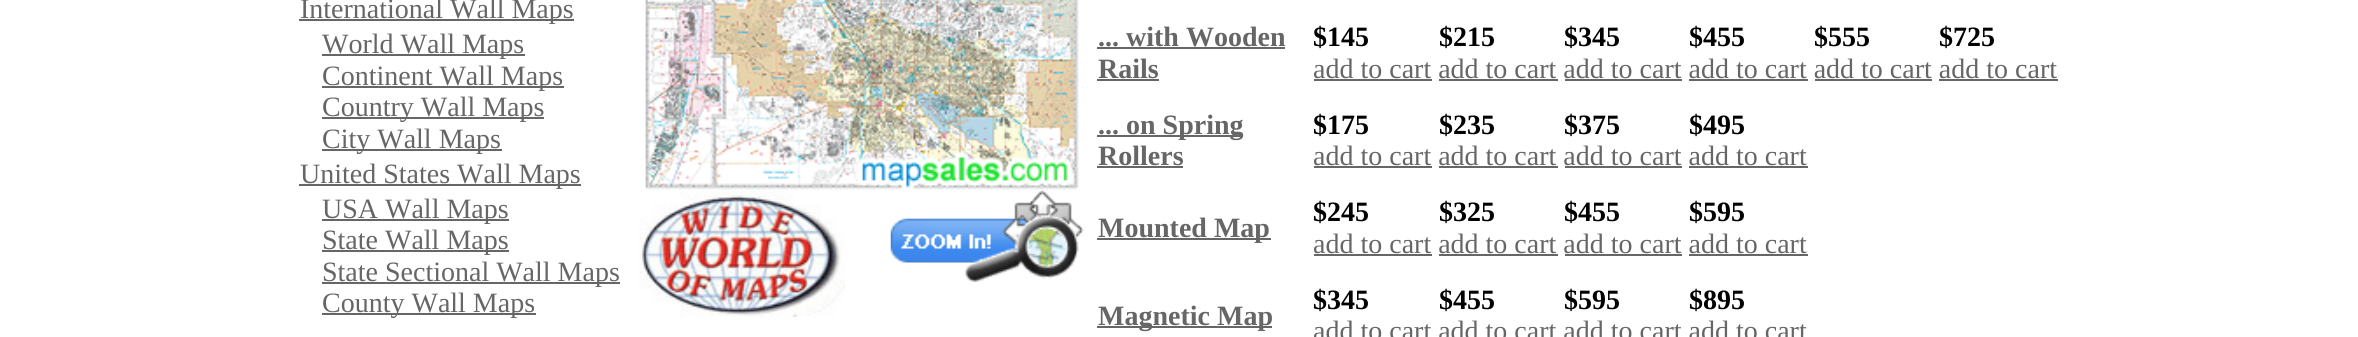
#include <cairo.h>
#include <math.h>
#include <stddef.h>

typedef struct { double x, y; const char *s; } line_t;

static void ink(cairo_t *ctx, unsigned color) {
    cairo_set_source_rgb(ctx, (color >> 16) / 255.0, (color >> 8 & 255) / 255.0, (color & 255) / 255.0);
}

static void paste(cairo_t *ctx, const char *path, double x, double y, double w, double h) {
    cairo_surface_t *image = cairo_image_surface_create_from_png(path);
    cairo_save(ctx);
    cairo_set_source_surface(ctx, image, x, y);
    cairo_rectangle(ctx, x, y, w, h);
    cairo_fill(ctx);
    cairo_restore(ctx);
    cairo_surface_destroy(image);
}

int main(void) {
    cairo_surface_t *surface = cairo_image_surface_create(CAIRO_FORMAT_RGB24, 2358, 337);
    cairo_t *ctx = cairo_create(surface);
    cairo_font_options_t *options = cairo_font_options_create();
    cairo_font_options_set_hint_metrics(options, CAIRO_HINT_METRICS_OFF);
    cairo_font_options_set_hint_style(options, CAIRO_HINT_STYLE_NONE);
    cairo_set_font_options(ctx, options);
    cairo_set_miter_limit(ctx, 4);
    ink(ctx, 0xFFFFFF);
    cairo_paint(ctx);
    ink(ctx, 0x666666);
    cairo_rectangle(ctx, 299, 19, 275, 2);
    cairo_fill(ctx);
    cairo_select_font_face(ctx, "Liberation Serif", CAIRO_FONT_SLANT_NORMAL, CAIRO_FONT_WEIGHT_NORMAL);
    cairo_set_font_size(ctx, 28);
    cairo_move_to(ctx, 300, 18);
    cairo_show_text(ctx, "International Wall Maps");
    cairo_rectangle(ctx, 322, 54, 203, 2);
    cairo_fill(ctx);
    cairo_move_to(ctx, 322, 53);
    cairo_show_text(ctx, "World Wall Maps");
    cairo_rectangle(ctx, 322, 86, 242, 2);
    cairo_fill(ctx);
    cairo_move_to(ctx, 322, 85);
    cairo_show_text(ctx, "Continent Wall Maps");
    cairo_rectangle(ctx, 322, 117, 222, 2);
    cairo_fill(ctx);
    cairo_move_to(ctx, 322, 116);
    cairo_show_text(ctx, "Country Wall Maps");
    cairo_rectangle(ctx, 322, 149, 180, 2);
    cairo_fill(ctx);
    cairo_move_to(ctx, 322, 148);
    cairo_show_text(ctx, "City Wall Maps");
    cairo_rectangle(ctx, 299, 184, 282, 2);
    cairo_fill(ctx);
    cairo_move_to(ctx, 300, 183);
    cairo_show_text(ctx, "United States Wall Maps");
    cairo_rectangle(ctx, 322, 219, 187, 2);
    cairo_fill(ctx);
    cairo_move_to(ctx, 322, 218);
    cairo_show_text(ctx, "USA Wall Maps");
    cairo_rectangle(ctx, 322, 250, 187, 2);
    cairo_fill(ctx);
    cairo_move_to(ctx, 322, 249);
    cairo_show_text(ctx, "State Wall Maps");
    cairo_rectangle(ctx, 322, 282, 298, 2);
    cairo_fill(ctx);
    cairo_move_to(ctx, 322, 281);
    cairo_show_text(ctx, "State Sectional Wall Maps");
    cairo_rectangle(ctx, 322, 313, 214, 2);
    cairo_fill(ctx);
    cairo_move_to(ctx, 322, 312);
    cairo_show_text(ctx, "County Wall Maps");
    paste(ctx, "media/1.png", 645, 0, 434, 190);
    paste(ctx, "media/2.png", 639, 191, 206, 126);
    paste(ctx, "media/3.png", 890, 190, 194, 92);
    cairo_select_font_face(ctx, "Liberation Serif", CAIRO_FONT_SLANT_NORMAL, CAIRO_FONT_WEIGHT_BOLD);
    ink(ctx, 0x000000);
    cairo_move_to(ctx, 1313, 46);
    cairo_show_text(ctx, "$145");
    cairo_select_font_face(ctx, "Liberation Serif", CAIRO_FONT_SLANT_NORMAL, CAIRO_FONT_WEIGHT_NORMAL);
    ink(ctx, 0x666666);
    cairo_move_to(ctx, 1313, 78);
    cairo_show_text(ctx, "add to cart add to cart add to cart add to cart add to cart add to cart");
    cairo_rectangle(ctx, 1314, 79, 118, 2);
    cairo_fill(ctx);
    cairo_select_font_face(ctx, "Liberation Serif", CAIRO_FONT_SLANT_NORMAL, CAIRO_FONT_WEIGHT_BOLD);
    cairo_move_to(ctx, 1098, 46);
    cairo_show_text(ctx, "... with Wooden");
    cairo_rectangle(ctx, 1097, 47, 188, 2);
    cairo_fill(ctx);
    cairo_move_to(ctx, 1098, 78);
    cairo_show_text(ctx, "Rails");
    cairo_rectangle(ctx, 1097, 79, 62, 2);
    cairo_fill(ctx);
    ink(ctx, 0x000000);
    cairo_move_to(ctx, 1439, 46);
    cairo_show_text(ctx, "$215");
    ink(ctx, 0x666666);
    cairo_rectangle(ctx, 1439, 79, 119, 2);
    cairo_fill(ctx);
    ink(ctx, 0x000000);
    cairo_move_to(ctx, 1564, 46);
    cairo_show_text(ctx, "$345");
    ink(ctx, 0x666666);
    cairo_rectangle(ctx, 1565, 79, 117, 2);
    cairo_fill(ctx);
    ink(ctx, 0x000000);
    cairo_move_to(ctx, 1689, 46);
    cairo_show_text(ctx, "$455");
    ink(ctx, 0x666666);
    cairo_rectangle(ctx, 1689, 79, 119, 2);
    cairo_fill(ctx);
    ink(ctx, 0x000000);
    cairo_move_to(ctx, 1814, 46);
    cairo_show_text(ctx, "$555");
    ink(ctx, 0x666666);
    cairo_rectangle(ctx, 1815, 79, 117, 2);
    cairo_fill(ctx);
    ink(ctx, 0x000000);
    cairo_move_to(ctx, 1939, 46);
    cairo_show_text(ctx, "$725");
    ink(ctx, 0x666666);
    cairo_rectangle(ctx, 1939, 79, 119, 2);
    cairo_fill(ctx);
    ink(ctx, 0x000000);
    cairo_move_to(ctx, 1313, 134);
    cairo_show_text(ctx, "$175");
    cairo_select_font_face(ctx, "Liberation Serif", CAIRO_FONT_SLANT_NORMAL, CAIRO_FONT_WEIGHT_NORMAL);
    ink(ctx, 0x666666);
    cairo_move_to(ctx, 1313, 165);
    cairo_show_text(ctx, "add to cart add to cart add to cart add to cart");
    cairo_rectangle(ctx, 1314, 166, 118, 2);
    cairo_fill(ctx);
    cairo_rectangle(ctx, 1097, 135, 146, 2);
    cairo_fill(ctx);
    cairo_select_font_face(ctx, "Liberation Serif", CAIRO_FONT_SLANT_NORMAL, CAIRO_FONT_WEIGHT_BOLD);
    cairo_move_to(ctx, 1098, 134);
    cairo_show_text(ctx, "... on Spring");
    cairo_move_to(ctx, 1098, 165);
    cairo_show_text(ctx, "Rollers");
    cairo_rectangle(ctx, 1097, 166, 86, 2);
    cairo_fill(ctx);
    ink(ctx, 0x000000);
    cairo_move_to(ctx, 1439, 134);
    cairo_show_text(ctx, "$235");
    ink(ctx, 0x666666);
    cairo_rectangle(ctx, 1439, 166, 119, 2);
    cairo_fill(ctx);
    ink(ctx, 0x000000);
    cairo_move_to(ctx, 1564, 134);
    cairo_show_text(ctx, "$375");
    ink(ctx, 0x666666);
    cairo_rectangle(ctx, 1565, 166, 117, 2);
    cairo_fill(ctx);
    ink(ctx, 0x000000);
    cairo_move_to(ctx, 1689, 134);
    cairo_show_text(ctx, "$495");
    ink(ctx, 0x666666);
    cairo_rectangle(ctx, 1689, 166, 119, 2);
    cairo_fill(ctx);
    ink(ctx, 0x000000);
    cairo_move_to(ctx, 1313, 221);
    cairo_show_text(ctx, "$245");
    cairo_select_font_face(ctx, "Liberation Serif", CAIRO_FONT_SLANT_NORMAL, CAIRO_FONT_WEIGHT_NORMAL);
    ink(ctx, 0x666666);
    cairo_move_to(ctx, 1313, 253);
    cairo_show_text(ctx, "add to cart add to cart add to cart add to cart");
    cairo_rectangle(ctx, 1314, 254, 118, 2);
    cairo_fill(ctx);
    cairo_select_font_face(ctx, "Liberation Serif", CAIRO_FONT_SLANT_NORMAL, CAIRO_FONT_WEIGHT_BOLD);
    ink(ctx, 0x000000);
    cairo_move_to(ctx, 1439, 221);
    cairo_show_text(ctx, "$325");
    ink(ctx, 0x666666);
    cairo_rectangle(ctx, 1439, 254, 119, 2);
    cairo_fill(ctx);
    ink(ctx, 0x000000);
    cairo_move_to(ctx, 1564, 221);
    cairo_show_text(ctx, "$455");
    ink(ctx, 0x666666);
    cairo_rectangle(ctx, 1565, 254, 117, 2);
    cairo_fill(ctx);
    ink(ctx, 0x000000);
    cairo_move_to(ctx, 1689, 221);
    cairo_show_text(ctx, "$595");
    ink(ctx, 0x666666);
    cairo_rectangle(ctx, 1689, 254, 119, 2);
    cairo_fill(ctx);
    cairo_rectangle(ctx, 1097, 238, 174, 2);
    cairo_fill(ctx);
    cairo_move_to(ctx, 1098, 237);
    cairo_show_text(ctx, "Mounted Map");
    ink(ctx, 0x000000);
    cairo_move_to(ctx, 1313, 309);
    cairo_show_text(ctx, "$345");
    cairo_select_font_face(ctx, "Liberation Serif", CAIRO_FONT_SLANT_NORMAL, CAIRO_FONT_WEIGHT_NORMAL);
    ink(ctx, 0x666666);
    cairo_move_to(ctx, 1313, 340);
    cairo_show_text(ctx, "add to cart add to cart add to cart add to cart");
    cairo_select_font_face(ctx, "Liberation Serif", CAIRO_FONT_SLANT_NORMAL, CAIRO_FONT_WEIGHT_BOLD);
    ink(ctx, 0x000000);
    {
        static const line_t items[] = {
            {1439, 309, "$455"},
            {1564, 309, "$595"},
            {1689, 309, "$895"},
        };
        for (size_t i = 0; i < sizeof items / sizeof *items; i++) {
            cairo_move_to(ctx, items[i].x, items[i].y);
            cairo_show_text(ctx, items[i].s);
        }
    }
    ink(ctx, 0x666666);
    cairo_rectangle(ctx, 1097, 326, 175, 2);
    cairo_fill(ctx);
    cairo_move_to(ctx, 1098, 325);
    cairo_show_text(ctx, "Magnetic Map");
    cairo_surface_write_to_png(surface, "image.png");
    cairo_font_options_destroy(options);
    cairo_destroy(ctx);
    cairo_surface_destroy(surface);
    return 0;
}
